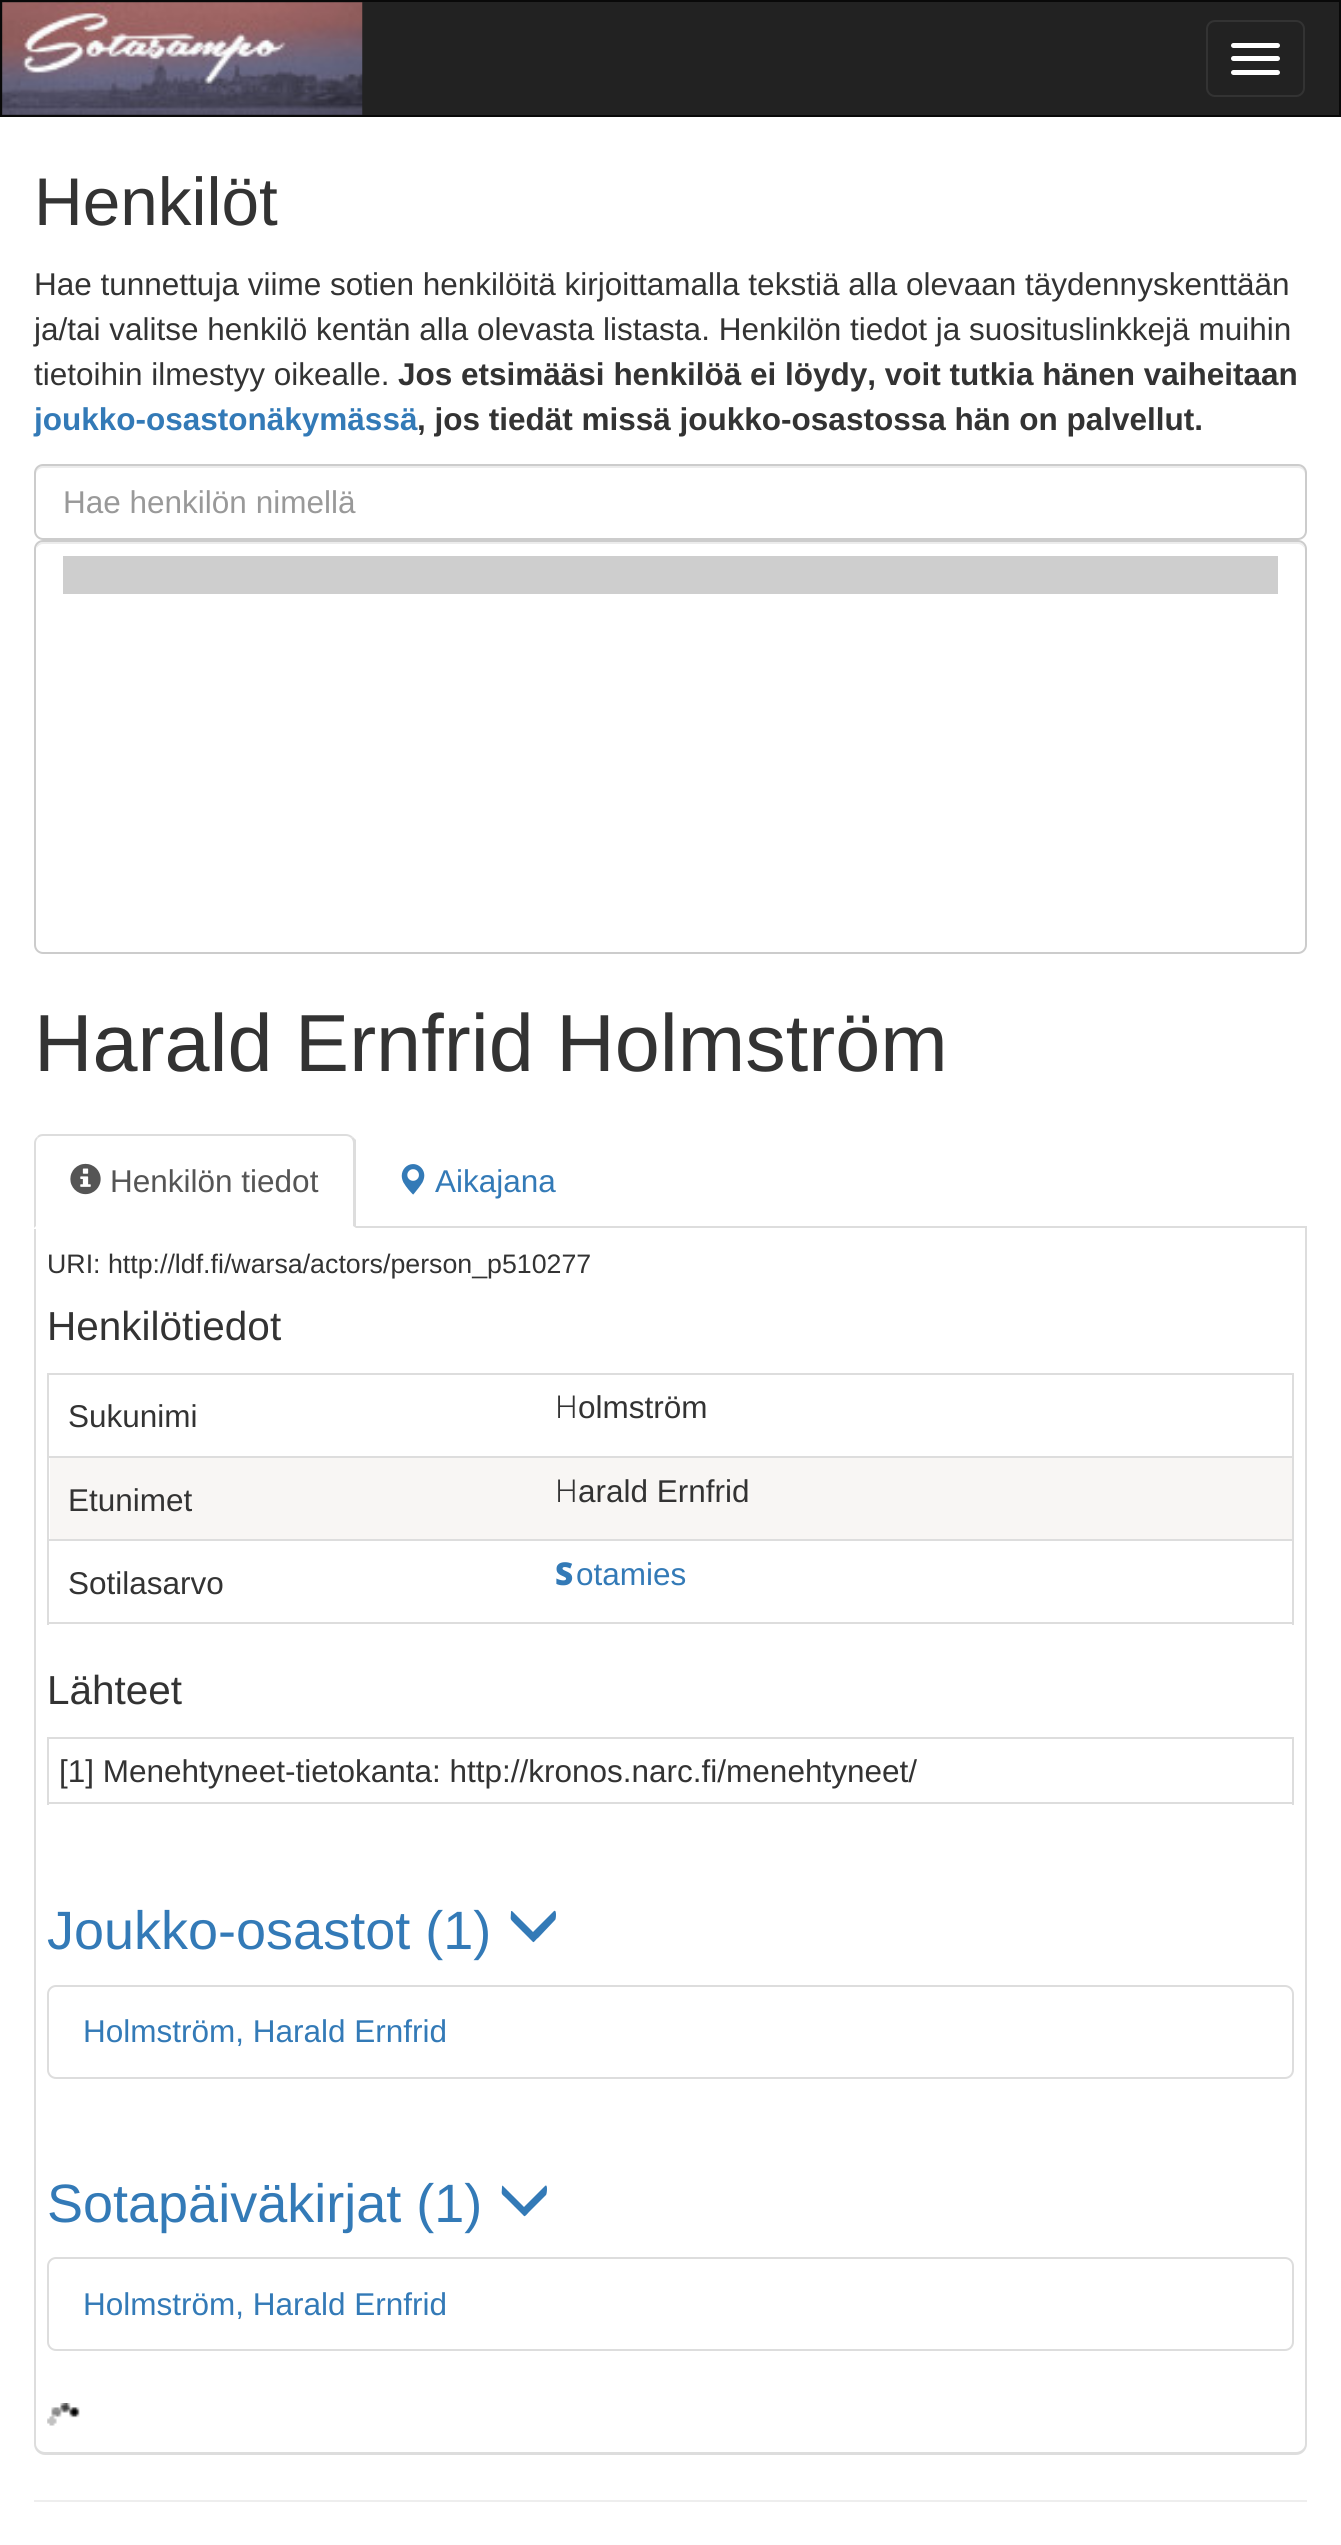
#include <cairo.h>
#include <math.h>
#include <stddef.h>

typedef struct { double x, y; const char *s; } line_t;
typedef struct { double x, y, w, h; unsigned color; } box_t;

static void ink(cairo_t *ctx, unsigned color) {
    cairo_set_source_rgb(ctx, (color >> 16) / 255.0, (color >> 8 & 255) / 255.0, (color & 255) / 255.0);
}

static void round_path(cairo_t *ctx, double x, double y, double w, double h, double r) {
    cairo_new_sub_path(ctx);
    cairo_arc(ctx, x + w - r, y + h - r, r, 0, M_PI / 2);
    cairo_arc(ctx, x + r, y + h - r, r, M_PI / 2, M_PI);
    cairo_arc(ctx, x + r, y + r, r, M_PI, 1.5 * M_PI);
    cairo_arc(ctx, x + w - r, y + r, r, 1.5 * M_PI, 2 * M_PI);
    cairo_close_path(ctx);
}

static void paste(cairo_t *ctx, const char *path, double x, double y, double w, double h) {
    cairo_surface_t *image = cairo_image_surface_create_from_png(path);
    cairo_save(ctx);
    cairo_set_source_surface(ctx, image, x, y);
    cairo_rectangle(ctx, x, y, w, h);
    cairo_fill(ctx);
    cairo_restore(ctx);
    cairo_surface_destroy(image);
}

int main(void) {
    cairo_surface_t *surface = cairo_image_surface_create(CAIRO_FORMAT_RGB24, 1341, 2545);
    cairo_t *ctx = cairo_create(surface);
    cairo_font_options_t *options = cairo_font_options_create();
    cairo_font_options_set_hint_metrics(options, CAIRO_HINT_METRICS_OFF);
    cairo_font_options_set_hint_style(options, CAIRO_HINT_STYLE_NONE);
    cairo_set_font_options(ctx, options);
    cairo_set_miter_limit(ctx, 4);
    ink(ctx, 0xFFFFFF);
    cairo_paint(ctx);
    ink(ctx, 0x222222);
    cairo_rectangle(ctx, 1, 1, 1339, 115);
    cairo_fill_preserve(ctx);
    ink(ctx, 0x090909);
    cairo_stroke(ctx);
    paste(ctx, "media/1.png", 2, 2, 361, 113);
    round_path(ctx, 1207, 21, 97, 75, 8);
    ink(ctx, 0x333333);
    cairo_stroke(ctx);
    ink(ctx, 0xFFFFFF);
    round_path(ctx, 1231, 43, 49, 5, 2.5);
    cairo_fill(ctx);
    round_path(ctx, 1231, 56, 49, 5, 2.5);
    cairo_fill(ctx);
    round_path(ctx, 1231, 70, 49, 5, 2.5);
    cairo_fill(ctx);
    cairo_select_font_face(ctx, "Liberation Sans", CAIRO_FONT_SLANT_NORMAL, CAIRO_FONT_WEIGHT_NORMAL);
    cairo_set_font_size(ctx, 67.5);
    ink(ctx, 0x333333);
    cairo_move_to(ctx, 34, 225);
    cairo_show_text(ctx, "Henkilöt");
    cairo_set_font_size(ctx, 31.5);
    {
        static const line_t items[] = {
            {34, 295, "Hae tunnettuja viime sotien henkilöitä kirjoittamalla tekstiä alla olevaan täydennyskenttään"},
            {34, 340, "ja/tai valitse henkilö kentän alla olevasta listasta. Henkilön tiedot ja suosituslinkkejä muihin"},
            {34, 385, "tietoihin ilmestyy oikealle."},
        };
        for (size_t i = 0; i < sizeof items / sizeof *items; i++) {
            cairo_move_to(ctx, items[i].x, items[i].y);
            cairo_show_text(ctx, items[i].s);
        }
    }
    cairo_select_font_face(ctx, "Liberation Sans", CAIRO_FONT_SLANT_NORMAL, CAIRO_FONT_WEIGHT_BOLD);
    cairo_move_to(ctx, 398, 385);
    cairo_show_text(ctx, "Jos etsimääsi henkilöä ei löydy, voit tutkia hänen vaiheitaan");
    ink(ctx, 0x337AB7);
    cairo_move_to(ctx, 34, 430);
    cairo_show_text(ctx, "joukko-osastonäkymässä");
    ink(ctx, 0x333333);
    cairo_move_to(ctx, 417, 430);
    cairo_show_text(ctx, ", jos tiedät missä joukko-osastossa hän on palvellut.");
    ink(ctx, 0xECECEC);
    cairo_new_path(ctx);
    cairo_move_to(ctx, 43, 468);
    cairo_line_to(ctx, 1298, 468);
    cairo_curve_to(ctx, 1302, 468, 1305, 471, 1305, 475);
    cairo_line_to(ctx, 1305, 473);
    cairo_curve_to(ctx, 1305, 469, 1302, 466, 1298, 466);
    cairo_line_to(ctx, 43, 466);
    cairo_curve_to(ctx, 39, 466, 36, 469, 36, 473);
    cairo_line_to(ctx, 36, 475);
    cairo_curve_to(ctx, 36, 471, 39, 468, 43, 468);
    cairo_close_path(ctx);
    cairo_fill(ctx);
    round_path(ctx, 35, 465, 1271, 74, 8);
    ink(ctx, 0xCCCCCC);
    cairo_stroke(ctx);
    cairo_select_font_face(ctx, "Liberation Sans", CAIRO_FONT_SLANT_NORMAL, CAIRO_FONT_WEIGHT_NORMAL);
    ink(ctx, 0x999999);
    cairo_move_to(ctx, 63, 513);
    cairo_show_text(ctx, "Hae henkilön nimellä");
    ink(ctx, 0xECECEC);
    cairo_new_path(ctx);
    cairo_move_to(ctx, 43, 544);
    cairo_line_to(ctx, 1298, 544);
    cairo_curve_to(ctx, 1302, 544, 1305, 548, 1305, 551);
    cairo_curve_to(ctx, 1305, 547, 1303, 542, 1298, 542);
    cairo_line_to(ctx, 42, 542);
    cairo_line_to(ctx, 38, 544);
    cairo_line_to(ctx, 37, 546);
    cairo_line_to(ctx, 36, 551);
    cairo_curve_to(ctx, 36, 548, 39, 544, 43, 544);
    cairo_close_path(ctx);
    cairo_fill(ctx);
    round_path(ctx, 35, 541, 1271, 412, 8);
    ink(ctx, 0xCCCCCC);
    cairo_stroke(ctx);
    ink(ctx, 0xCECECE);
    cairo_rectangle(ctx, 63, 556, 1215, 38);
    cairo_fill(ctx);
    cairo_set_font_size(ctx, 81);
    ink(ctx, 0x333333);
    cairo_move_to(ctx, 34, 1071);
    cairo_show_text(ctx, "Harald Ernfrid Holmström");
    ink(ctx, 0xDDDDDD);
    cairo_rectangle(ctx, 356, 1226, 951, 2);
    cairo_fill(ctx);
    cairo_set_fill_rule(ctx, CAIRO_FILL_RULE_EVEN_ODD);
    cairo_new_path(ctx);
    cairo_move_to(ctx, 34, 1228);
    cairo_line_to(ctx, 1307, 1228);
    cairo_line_to(ctx, 1307, 2444);
    cairo_curve_to(ctx, 1307, 2450, 1302, 2455, 1296, 2455);
    cairo_line_to(ctx, 45, 2455);
    cairo_curve_to(ctx, 39, 2455, 34, 2450, 34, 2444);
    cairo_close_path(ctx);
    cairo_move_to(ctx, 36, 1228);
    cairo_line_to(ctx, 1305, 1228);
    cairo_line_to(ctx, 1305, 2444);
    cairo_curve_to(ctx, 1305, 2448, 1301, 2452, 1296, 2452);
    cairo_line_to(ctx, 45, 2452);
    cairo_curve_to(ctx, 40, 2452, 36, 2448, 36, 2444);
    cairo_close_path(ctx);
    cairo_fill(ctx);
    ink(ctx, 0xFFFFFF);
    cairo_new_path(ctx);
    cairo_move_to(ctx, 43, 1134);
    cairo_line_to(ctx, 347, 1134);
    cairo_curve_to(ctx, 352, 1134, 356, 1138, 356, 1143);
    cairo_line_to(ctx, 356, 1229);
    cairo_line_to(ctx, 34, 1229);
    cairo_line_to(ctx, 34, 1143);
    cairo_curve_to(ctx, 34, 1138, 38, 1134, 43, 1134);
    cairo_close_path(ctx);
    cairo_fill(ctx);
    ink(ctx, 0xDDDDDD);
    cairo_set_fill_rule(ctx, CAIRO_FILL_RULE_WINDING);
    cairo_new_path(ctx);
    cairo_move_to(ctx, 43, 1134);
    cairo_curve_to(ctx, 40, 1134, 38, 1135, 37, 1137);
    cairo_line_to(ctx, 38, 1138);
    cairo_curve_to(ctx, 39, 1137, 41, 1136, 43, 1136);
    cairo_line_to(ctx, 346, 1136);
    cairo_curve_to(ctx, 348, 1136, 350, 1137, 351, 1138);
    cairo_line_to(ctx, 353, 1137);
    cairo_curve_to(ctx, 351, 1135, 348, 1134, 346, 1134);
    cairo_close_path(ctx);
    cairo_fill(ctx);
    cairo_new_path(ctx);
    cairo_move_to(ctx, 356, 1228);
    cairo_line_to(ctx, 353, 1226);
    cairo_line_to(ctx, 353, 1143);
    cairo_curve_to(ctx, 353, 1141, 352, 1139, 351, 1138);
    cairo_line_to(ctx, 353, 1137);
    cairo_line_to(ctx, 356, 1140);
    cairo_close_path(ctx);
    cairo_fill(ctx);
    cairo_new_path(ctx);
    cairo_move_to(ctx, 37, 1137);
    cairo_curve_to(ctx, 35, 1138, 34, 1141, 34, 1143);
    cairo_line_to(ctx, 34, 1228);
    cairo_line_to(ctx, 36, 1226);
    cairo_line_to(ctx, 36, 1143);
    cairo_curve_to(ctx, 36, 1141, 37, 1139, 38, 1138);
    cairo_close_path(ctx);
    cairo_fill(ctx);
    paste(ctx, "media/2.png", 70, 1163, 31, 32);
    cairo_set_font_size(ctx, 31.5);
    ink(ctx, 0x555555);
    cairo_move_to(ctx, 110, 1192);
    cairo_show_text(ctx, "Henkilön tiedot");
    paste(ctx, "media/3.png", 401, 1164, 24, 31);
    ink(ctx, 0x337AB7);
    cairo_move_to(ctx, 435, 1192);
    cairo_show_text(ctx, "Aikajana");
    cairo_set_font_size(ctx, 26.75);
    ink(ctx, 0x333333);
    cairo_move_to(ctx, 47, 1273);
    cairo_show_text(ctx, "URI: http://ldf.fi/warsa/actors/person_p510277");
    cairo_set_font_size(ctx, 40.5);
    cairo_move_to(ctx, 47, 1340);
    cairo_show_text(ctx, "Henkilötiedot");
    {
        static const box_t items[] = {
            {47, 1373, 1247, 2, 0xDDDDDD},
            {1292, 1373, 2, 252, 0xDDDDDD},
            {47, 1622, 1247, 2, 0xDDDDDD},
            {47, 1373, 2, 252, 0xDDDDDD},
        };
        for (size_t i = 0; i < sizeof items / sizeof *items; i++) {
            ink(ctx, items[i].color);
            cairo_rectangle(ctx, items[i].x, items[i].y, items[i].w, items[i].h);
            cairo_fill(ctx);
        }
    }
    cairo_set_font_size(ctx, 31.5);
    ink(ctx, 0x333333);
    cairo_move_to(ctx, 68, 1427);
    cairo_show_text(ctx, "Sukunimi");
    cairo_select_font_face(ctx, "Noto Sans Light", CAIRO_FONT_SLANT_NORMAL, CAIRO_FONT_WEIGHT_NORMAL);
    cairo_move_to(ctx, 555, 1418);
    cairo_show_text(ctx, "H");
    cairo_select_font_face(ctx, "Liberation Sans", CAIRO_FONT_SLANT_NORMAL, CAIRO_FONT_WEIGHT_NORMAL);
    cairo_move_to(ctx, 578, 1418);
    cairo_show_text(ctx, "olmström");
    ink(ctx, 0xF8F6F4);
    cairo_rectangle(ctx, 50, 1458, 1242, 81);
    cairo_fill(ctx);
    ink(ctx, 0x333333);
    cairo_move_to(ctx, 68, 1511);
    cairo_show_text(ctx, "Etunimet");
    ink(ctx, 0xDDDDDD);
    cairo_rectangle(ctx, 47, 1456, 1247, 2);
    cairo_fill(ctx);
    cairo_select_font_face(ctx, "Noto Sans Light", CAIRO_FONT_SLANT_NORMAL, CAIRO_FONT_WEIGHT_NORMAL);
    ink(ctx, 0x333333);
    cairo_move_to(ctx, 555, 1502);
    cairo_show_text(ctx, "H");
    cairo_select_font_face(ctx, "Liberation Sans", CAIRO_FONT_SLANT_NORMAL, CAIRO_FONT_WEIGHT_NORMAL);
    cairo_move_to(ctx, 578, 1502);
    cairo_show_text(ctx, "arald Ernfrid");
    cairo_move_to(ctx, 68, 1594);
    cairo_show_text(ctx, "Sotilasarvo");
    ink(ctx, 0xDDDDDD);
    cairo_rectangle(ctx, 47, 1539, 1247, 2);
    cairo_fill(ctx);
    cairo_select_font_face(ctx, "Noto Sans Black", CAIRO_FONT_SLANT_NORMAL, CAIRO_FONT_WEIGHT_NORMAL);
    ink(ctx, 0x337AB7);
    cairo_move_to(ctx, 555, 1585);
    cairo_show_text(ctx, "S");
    cairo_select_font_face(ctx, "Liberation Sans", CAIRO_FONT_SLANT_NORMAL, CAIRO_FONT_WEIGHT_NORMAL);
    cairo_move_to(ctx, 576, 1585);
    cairo_show_text(ctx, "otamies");
    cairo_set_font_size(ctx, 40.5);
    ink(ctx, 0x333333);
    cairo_move_to(ctx, 47, 1704);
    cairo_show_text(ctx, "Lähteet");
    {
        static const box_t items[] = {
            {47, 1737, 1247, 2, 0xDDDDDD},
            {1292, 1737, 2, 68, 0xDDDDDD},
            {47, 1802, 1247, 2, 0xDDDDDD},
            {47, 1737, 2, 68, 0xDDDDDD},
        };
        for (size_t i = 0; i < sizeof items / sizeof *items; i++) {
            ink(ctx, items[i].color);
            cairo_rectangle(ctx, items[i].x, items[i].y, items[i].w, items[i].h);
            cairo_fill(ctx);
        }
    }
    cairo_set_font_size(ctx, 31.5);
    ink(ctx, 0x333333);
    cairo_move_to(ctx, 59, 1782);
    cairo_show_text(ctx, "[1] Menehtyneet-tietokanta: http://kronos.narc.fi/menehtyneet/");
    cairo_set_font_size(ctx, 54);
    ink(ctx, 0x337AB7);
    cairo_move_to(ctx, 47, 1949);
    cairo_show_text(ctx, "Joukko-osastot (1)");
    cairo_new_path(ctx);
    cairo_move_to(ctx, 554, 1911);
    cairo_curve_to(ctx, 557, 1909, 556, 1920, 555, 1920);
    cairo_line_to(ctx, 538, 1938);
    cairo_curve_to(ctx, 536, 1939, 534, 1943, 533, 1942);
    cairo_line_to(ctx, 515, 1924);
    cairo_curve_to(ctx, 509, 1918, 511, 1920, 511, 1912);
    cairo_curve_to(ctx, 511, 1911, 511, 1911, 512, 1911);
    cairo_line_to(ctx, 533, 1932);
    cairo_close_path(ctx);
    cairo_fill(ctx);
    round_path(ctx, 48, 1986, 1245, 92, 8);
    ink(ctx, 0xDDDDDD);
    cairo_stroke(ctx);
    cairo_set_font_size(ctx, 31.5);
    ink(ctx, 0x337AB7);
    cairo_move_to(ctx, 83, 2042);
    cairo_show_text(ctx, "Holmström, Harald Ernfrid");
    cairo_set_font_size(ctx, 54);
    cairo_move_to(ctx, 47, 2222);
    cairo_show_text(ctx, "Sotapäiväkirjat (1)");
    cairo_new_path(ctx);
    cairo_move_to(ctx, 545, 2186);
    cairo_curve_to(ctx, 548, 2183, 547, 2194, 546, 2195);
    cairo_line_to(ctx, 529, 2212);
    cairo_curve_to(ctx, 527, 2214, 525, 2217, 524, 2216);
    cairo_line_to(ctx, 506, 2198);
    cairo_curve_to(ctx, 500, 2193, 502, 2194, 502, 2187);
    cairo_curve_to(ctx, 502, 2186, 502, 2185, 503, 2186);
    cairo_line_to(ctx, 524, 2207);
    cairo_close_path(ctx);
    cairo_fill(ctx);
    round_path(ctx, 48, 2258, 1245, 92, 8);
    ink(ctx, 0xDDDDDD);
    cairo_stroke(ctx);
    cairo_set_font_size(ctx, 31.5);
    ink(ctx, 0x337AB7);
    cairo_move_to(ctx, 83, 2315);
    cairo_show_text(ctx, "Holmström, Harald Ernfrid");
    paste(ctx, "media/4.png", 47, 2403, 33, 23);
    ink(ctx, 0xEEEEEE);
    cairo_rectangle(ctx, 34, 2500, 1273, 2);
    cairo_fill(ctx);
    cairo_surface_write_to_png(surface, "image.png");
    cairo_font_options_destroy(options);
    cairo_destroy(ctx);
    cairo_surface_destroy(surface);
    return 0;
}
